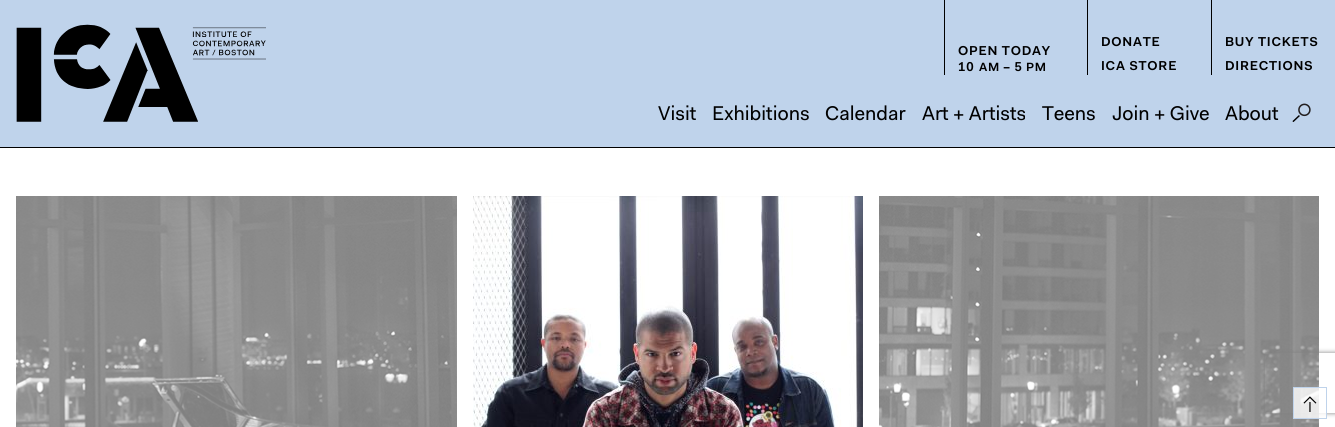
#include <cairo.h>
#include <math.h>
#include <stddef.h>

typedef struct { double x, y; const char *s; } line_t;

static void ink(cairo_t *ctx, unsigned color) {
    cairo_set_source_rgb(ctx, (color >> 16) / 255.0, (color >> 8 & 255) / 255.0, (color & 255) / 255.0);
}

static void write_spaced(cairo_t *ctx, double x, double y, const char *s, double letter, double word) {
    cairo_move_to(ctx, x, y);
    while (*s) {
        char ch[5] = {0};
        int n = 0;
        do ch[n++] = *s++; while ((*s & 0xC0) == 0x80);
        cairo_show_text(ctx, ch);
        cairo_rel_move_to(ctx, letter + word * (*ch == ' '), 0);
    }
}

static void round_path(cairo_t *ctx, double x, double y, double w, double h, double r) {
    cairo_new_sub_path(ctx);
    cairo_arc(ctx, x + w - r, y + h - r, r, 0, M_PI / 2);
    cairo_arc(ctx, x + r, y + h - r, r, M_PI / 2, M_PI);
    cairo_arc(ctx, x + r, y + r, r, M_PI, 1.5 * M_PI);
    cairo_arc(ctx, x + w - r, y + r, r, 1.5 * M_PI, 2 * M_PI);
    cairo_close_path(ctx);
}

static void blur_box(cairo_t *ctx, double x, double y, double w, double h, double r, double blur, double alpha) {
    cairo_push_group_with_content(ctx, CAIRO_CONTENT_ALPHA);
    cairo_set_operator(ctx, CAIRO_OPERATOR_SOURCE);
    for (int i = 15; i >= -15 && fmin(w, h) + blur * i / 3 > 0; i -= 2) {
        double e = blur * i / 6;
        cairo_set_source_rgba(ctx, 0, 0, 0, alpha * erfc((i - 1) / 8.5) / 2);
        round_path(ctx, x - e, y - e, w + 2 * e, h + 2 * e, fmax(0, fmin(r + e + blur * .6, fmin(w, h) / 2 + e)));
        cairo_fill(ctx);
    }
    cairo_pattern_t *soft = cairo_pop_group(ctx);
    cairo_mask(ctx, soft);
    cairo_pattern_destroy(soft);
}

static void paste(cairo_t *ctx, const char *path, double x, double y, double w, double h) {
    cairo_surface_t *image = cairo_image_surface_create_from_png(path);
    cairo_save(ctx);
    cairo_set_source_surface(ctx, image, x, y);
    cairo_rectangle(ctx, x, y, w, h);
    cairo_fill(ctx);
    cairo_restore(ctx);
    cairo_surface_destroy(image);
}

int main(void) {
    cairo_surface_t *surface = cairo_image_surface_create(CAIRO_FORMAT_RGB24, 1335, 427);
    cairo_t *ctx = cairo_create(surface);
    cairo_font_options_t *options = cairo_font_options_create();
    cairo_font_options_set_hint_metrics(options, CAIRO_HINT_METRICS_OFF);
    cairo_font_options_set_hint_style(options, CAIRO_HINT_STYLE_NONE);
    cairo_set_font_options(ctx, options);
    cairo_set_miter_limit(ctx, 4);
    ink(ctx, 0xFFFFFF);
    cairo_paint(ctx);
    ink(ctx, 0xBFD3EB);
    cairo_rectangle(ctx, 0, 0, 1335, 147);
    cairo_fill(ctx);
    ink(ctx, 0x000000);
    cairo_rectangle(ctx, 0, 147, 1335, 1);
    cairo_fill(ctx);
    paste(ctx, "media/1.png", 16, 24, 250, 98);
    cairo_rectangle(ctx, 944, 0, 1, 75);
    cairo_fill(ctx);
    cairo_select_font_face(ctx, "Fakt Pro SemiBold", CAIRO_FONT_SLANT_NORMAL, CAIRO_FONT_WEIGHT_NORMAL);
    cairo_set_font_size(ctx, 13);
    write_spaced(ctx, 958, 55, "OPEN TODAY", 0.75, 0);
    write_spaced(ctx, 958, 71, "10", 0.75, 0);
    cairo_set_font_size(ctx, 12);
    write_spaced(ctx, 979, 71, "AM", 0.75, 0);
    cairo_set_font_size(ctx, 13);
    write_spaced(ctx, 1003, 71, "– 5", 0.75, 0);
    cairo_set_font_size(ctx, 12);
    write_spaced(ctx, 1026, 71, "PM", 0.75, 0);
    cairo_rectangle(ctx, 1087, 0, 1, 75);
    cairo_fill(ctx);
    cairo_set_font_size(ctx, 13);
    write_spaced(ctx, 1101, 46, "DONATE", 0.75, 0);
    write_spaced(ctx, 1101, 70, "ICA STORE", 0.75, 0);
    cairo_rectangle(ctx, 1211, 0, 1, 75);
    cairo_fill(ctx);
    write_spaced(ctx, 1225, 46, "BUY TICKETS", 0.75, 0);
    write_spaced(ctx, 1225, 70, "DIRECTIONS", 0.75, 0);
    cairo_select_font_face(ctx, "Fakt Pro", CAIRO_FONT_SLANT_NORMAL, CAIRO_FONT_WEIGHT_NORMAL);
    cairo_set_font_size(ctx, 20);
    {
        static const line_t items[] = {
            {658, 120, "Visit"},
            {712, 120, "Exhibitions"},
            {825, 120, "Calendar"},
            {922, 120, "Art + Artists"},
            {1042, 120, "Teens"},
            {1112, 120, "Join + Give"},
            {1225, 120, "About"},
        };
        for (size_t i = 0; i < sizeof items / sizeof *items; i++) {
            cairo_move_to(ctx, items[i].x, items[i].y);
            cairo_show_text(ctx, items[i].s);
        }
    }
    paste(ctx, "media/2.png", 1292, 103, 19, 19);
    paste(ctx, "media/3.png", 16, 196, 441, 231);
    paste(ctx, "media/4.png", 473, 196, 390, 231);
    paste(ctx, "media/5.png", 879, 196, 440, 231);
    cairo_save(ctx);
    cairo_set_fill_rule(ctx, CAIRO_FILL_RULE_EVEN_ODD);
    cairo_new_path(ctx);
    cairo_move_to(ctx, 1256, 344);
    cairo_line_to(ctx, 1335, 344);
    cairo_line_to(ctx, 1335, 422);
    cairo_line_to(ctx, 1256, 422);
    cairo_close_path(ctx);
    cairo_move_to(ctx, 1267, 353);
    cairo_line_to(ctx, 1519, 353);
    cairo_curve_to(ctx, 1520, 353, 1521, 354, 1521, 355);
    cairo_line_to(ctx, 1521, 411);
    cairo_curve_to(ctx, 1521, 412, 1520, 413, 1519, 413);
    cairo_line_to(ctx, 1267, 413);
    cairo_curve_to(ctx, 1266, 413, 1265, 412, 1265, 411);
    cairo_line_to(ctx, 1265, 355);
    cairo_curve_to(ctx, 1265, 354, 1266, 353, 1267, 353);
    cairo_close_path(ctx);
    cairo_clip(ctx);
    ink(ctx, 0x808080);
    blur_box(ctx, 1265, 353, 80, 60, 2, 2.5, 1);
    cairo_restore(ctx);
    cairo_set_source_rgba(ctx, 1, 1, 1, 0.8);
    cairo_rectangle(ctx, 1293.5, 387.5, 33, 31);
    cairo_fill_preserve(ctx);
    ink(ctx, 0xBFD3EB);
    cairo_set_line_width(ctx, 1);
    cairo_stroke(ctx);
    paste(ctx, "media/6.png", 1303, 396, 14, 16);
    cairo_surface_write_to_png(surface, "image.png");
    cairo_font_options_destroy(options);
    cairo_destroy(ctx);
    cairo_surface_destroy(surface);
    return 0;
}
